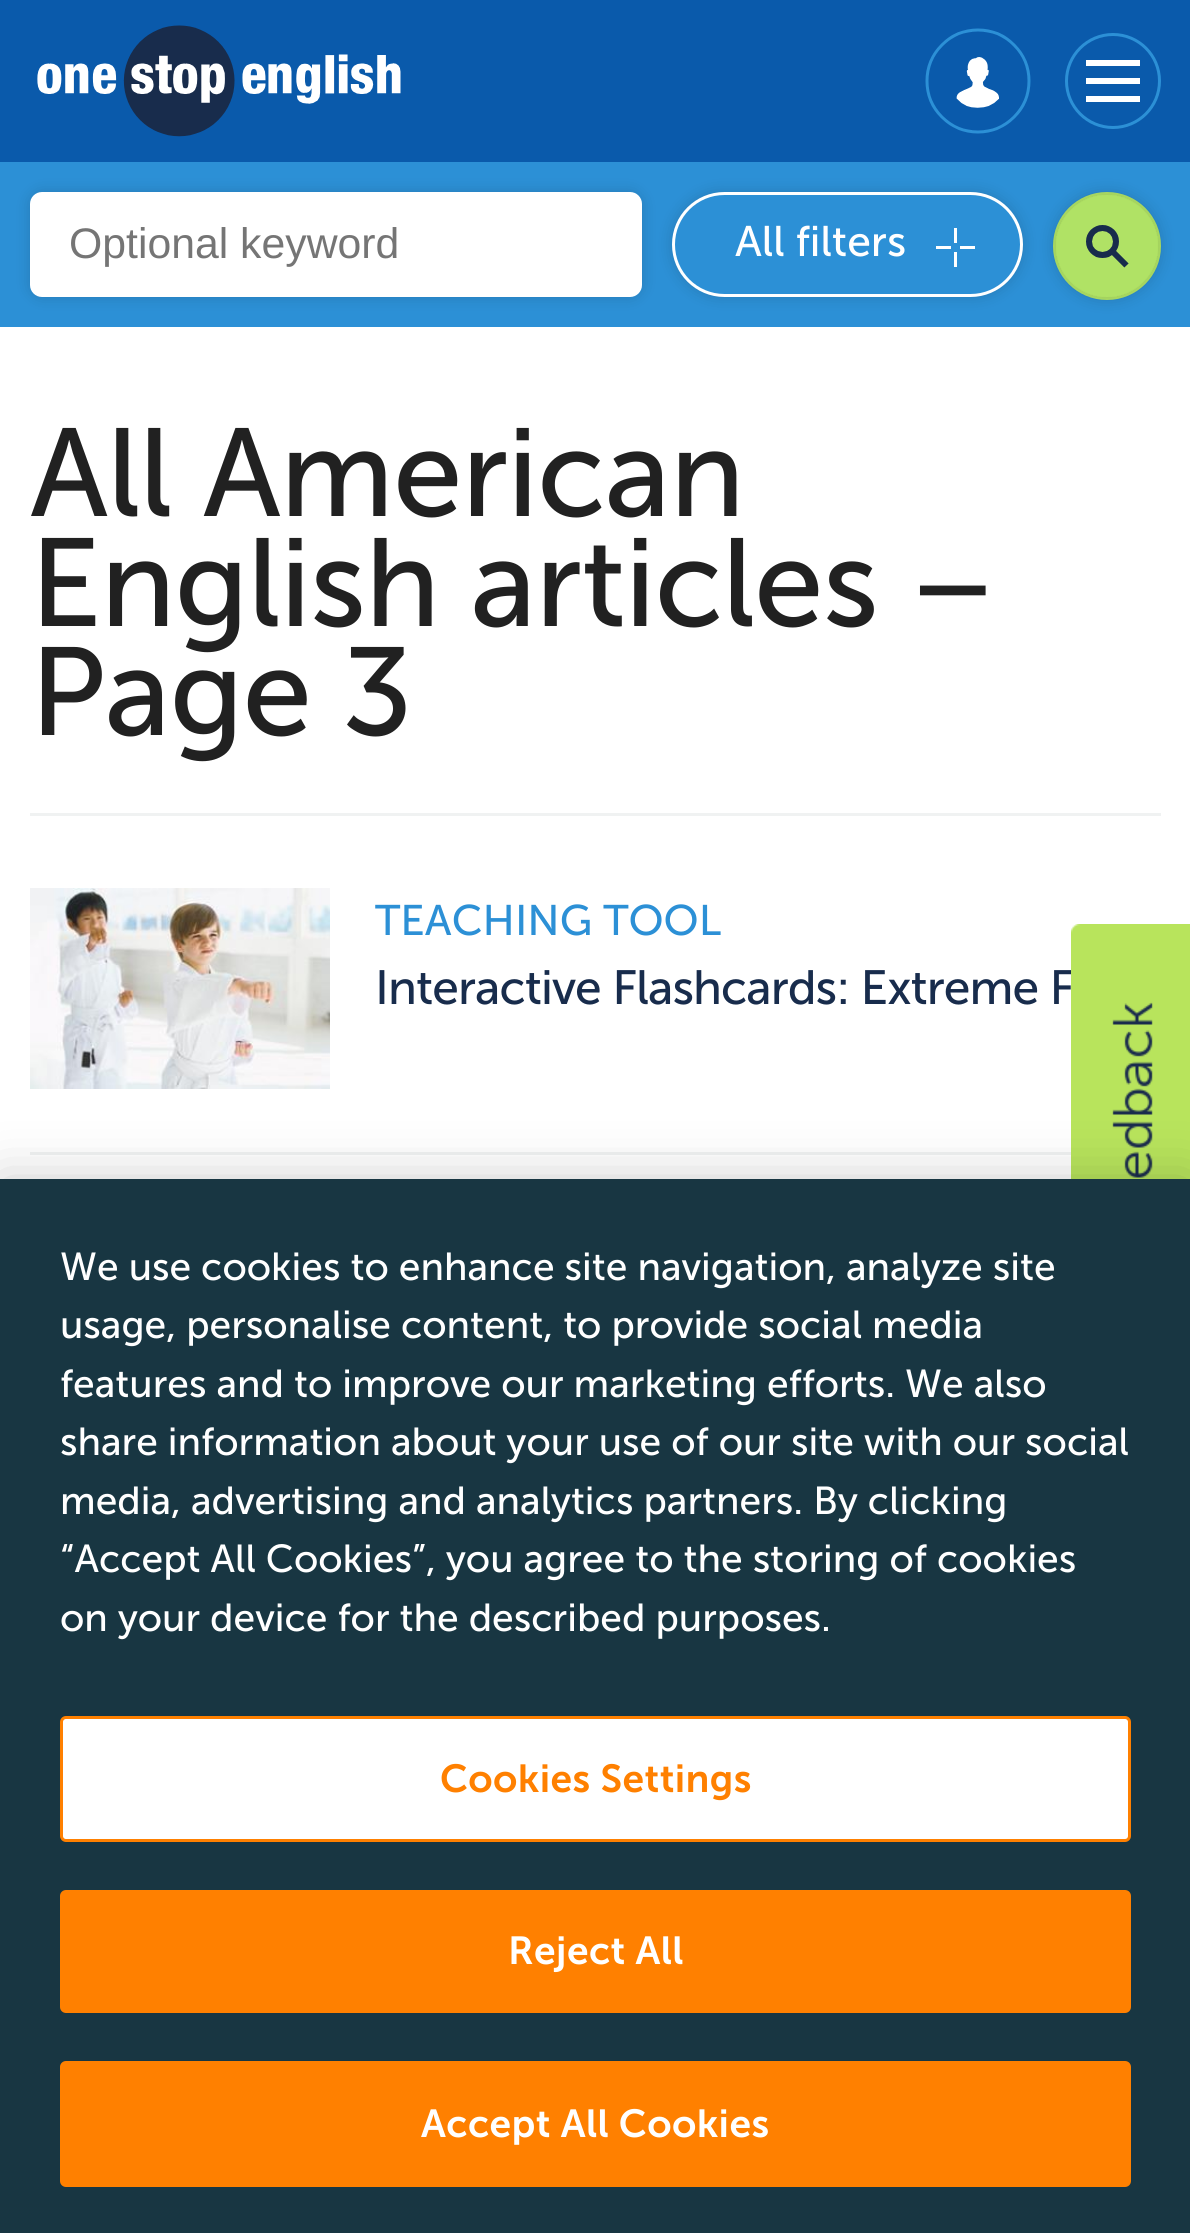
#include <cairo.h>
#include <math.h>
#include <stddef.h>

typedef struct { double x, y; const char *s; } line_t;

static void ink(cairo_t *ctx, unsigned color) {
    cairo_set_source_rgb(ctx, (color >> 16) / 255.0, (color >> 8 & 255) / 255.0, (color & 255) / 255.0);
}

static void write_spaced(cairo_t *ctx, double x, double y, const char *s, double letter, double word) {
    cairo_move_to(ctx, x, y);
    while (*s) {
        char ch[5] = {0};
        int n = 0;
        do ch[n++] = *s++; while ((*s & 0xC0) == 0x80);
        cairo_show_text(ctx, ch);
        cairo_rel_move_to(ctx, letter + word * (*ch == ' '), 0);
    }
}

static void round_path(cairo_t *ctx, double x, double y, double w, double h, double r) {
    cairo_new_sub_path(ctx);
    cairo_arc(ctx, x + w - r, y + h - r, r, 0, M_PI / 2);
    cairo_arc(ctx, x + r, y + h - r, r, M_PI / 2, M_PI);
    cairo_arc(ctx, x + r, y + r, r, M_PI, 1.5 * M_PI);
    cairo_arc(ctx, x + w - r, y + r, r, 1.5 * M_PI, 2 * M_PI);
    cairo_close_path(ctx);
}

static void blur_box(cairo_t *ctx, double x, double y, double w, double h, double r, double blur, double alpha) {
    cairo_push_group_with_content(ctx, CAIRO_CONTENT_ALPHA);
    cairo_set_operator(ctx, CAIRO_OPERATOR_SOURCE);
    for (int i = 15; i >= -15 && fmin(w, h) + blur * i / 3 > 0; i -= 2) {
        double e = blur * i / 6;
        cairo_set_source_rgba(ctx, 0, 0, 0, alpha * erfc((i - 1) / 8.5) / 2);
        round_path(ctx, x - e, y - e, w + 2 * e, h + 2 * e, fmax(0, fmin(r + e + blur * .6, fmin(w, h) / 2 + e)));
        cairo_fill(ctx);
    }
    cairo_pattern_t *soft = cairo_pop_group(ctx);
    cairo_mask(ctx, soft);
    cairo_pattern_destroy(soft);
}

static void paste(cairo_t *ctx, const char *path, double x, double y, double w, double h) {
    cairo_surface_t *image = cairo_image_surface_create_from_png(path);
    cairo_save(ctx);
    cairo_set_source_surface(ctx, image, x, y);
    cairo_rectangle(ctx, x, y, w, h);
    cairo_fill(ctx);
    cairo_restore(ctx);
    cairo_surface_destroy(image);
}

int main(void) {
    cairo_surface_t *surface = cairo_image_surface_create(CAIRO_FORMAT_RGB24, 1190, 2233);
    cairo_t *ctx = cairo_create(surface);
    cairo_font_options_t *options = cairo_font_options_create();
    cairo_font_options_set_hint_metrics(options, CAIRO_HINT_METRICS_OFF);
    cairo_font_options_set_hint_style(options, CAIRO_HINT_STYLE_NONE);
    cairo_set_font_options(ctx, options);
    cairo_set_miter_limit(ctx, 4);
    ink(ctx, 0xFFFFFF);
    cairo_paint(ctx);
    ink(ctx, 0x0A5AAB);
    cairo_rectangle(ctx, 0, 0, 1190, 162);
    cairo_fill(ctx);
    paste(ctx, "media/1.png", 37, 25, 364, 112);
    paste(ctx, "media/2.png", 925, 28, 106, 106);
    cairo_arc(ctx, 1113, 81, 46.5, 0, 2 * M_PI);
    ink(ctx, 0x2C90D6);
    cairo_set_line_width(ctx, 3);
    cairo_stroke(ctx);
    paste(ctx, "media/3.png", 1086, 60, 54, 42);
    cairo_rectangle(ctx, 0, 162, 1190, 165);
    cairo_fill(ctx);
    ink(ctx, 0x000000);
    blur_box(ctx, 30, 192, 612, 105, 12, 7.5, 0.15);
    ink(ctx, 0xFFFFFF);
    round_path(ctx, 30, 192, 612, 105, 12);
    cairo_fill(ctx);
    cairo_select_font_face(ctx, "Liberation Sans", CAIRO_FONT_SLANT_NORMAL, CAIRO_FONT_WEIGHT_NORMAL);
    cairo_set_font_size(ctx, 42.75);
    ink(ctx, 0x757575);
    cairo_move_to(ctx, 69, 258);
    cairo_show_text(ctx, "Optional keyword");
    ink(ctx, 0x000000);
    blur_box(ctx, 672, 192, 351, 105, 52.5, 7.5, 0.15);
    ink(ctx, 0x2C90D6);
    round_path(ctx, 673.5, 193.5, 348, 102, 51);
    cairo_fill_preserve(ctx);
    ink(ctx, 0xFFFFFF);
    cairo_stroke(ctx);
    cairo_select_font_face(ctx, "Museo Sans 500", CAIRO_FONT_SLANT_NORMAL, CAIRO_FONT_WEIGHT_NORMAL);
    cairo_move_to(ctx, 735, 256);
    cairo_show_text(ctx, "All filters");
    paste(ctx, "media/4.png", 936, 228, 39, 39);
    ink(ctx, 0x000000);
    blur_box(ctx, 1053, 192, 108, 108, 54, 7.5, 0.15);
    ink(ctx, 0xB0E265);
    cairo_arc(ctx, 1107, 246, 54, 0, 2 * M_PI);
    cairo_fill(ctx);
    paste(ctx, "media/5.png", 1053, 192, 108, 108);
    ink(ctx, 0xF0F2F2);
    cairo_rectangle(ctx, 30, 813, 1131, 3);
    cairo_fill(ctx);
    cairo_set_font_size(ctx, 124.75);
    ink(ctx, 0x212121);
    {
        static const line_t items[] = {
            {30, 516, "All American"},
            {30, 626, "English articles –"},
            {30, 735, "Page 3"},
        };
        for (size_t i = 0; i < sizeof items / sizeof *items; i++) {
            write_spaced(ctx, items[i].x, items[i].y, items[i].s, -0.95, 0);
        }
    }
    ink(ctx, 0xF0F2F2);
    cairo_rectangle(ctx, 30, 1152, 1041, 3);
    cairo_fill(ctx);
    paste(ctx, "media/6.png", 30, 888, 300, 201);
    cairo_set_font_size(ctx, 42.75);
    ink(ctx, 0x2C90D6);
    cairo_move_to(ctx, 375, 935);
    cairo_show_text(ctx, "TEACHING TOOL");
    cairo_set_font_size(ctx, 48);
    ink(ctx, 0x182C4C);
    write_spaced(ctx, 375, 1004, "Interactive Flashcards: Extreme F", -0.95, 0);
    paste(ctx, "media/7.png", 1071, 924, 119, 255);
    ink(ctx, 0x000000);
    blur_box(ctx, 0, 1179, 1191, 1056, 0, 27, 0.2);
    ink(ctx, 0x183642);
    cairo_rectangle(ctx, 0, 1179, 1190, 1054);
    cairo_fill(ctx);
    cairo_set_font_size(ctx, 39);
    ink(ctx, 0xFFFFFF);
    {
        static const line_t items[] = {
            {60, 1280, "We use cookies to enhance site navigation, analyze site"},
            {60, 1338, "usage, personalise content, to provide social media"},
            {60, 1397, "features and to improve our marketing efforts. We also"},
            {60, 1455, "share information about your use of our site with our social"},
            {60, 1514, "media, advertising and analytics partners. By clicking"},
            {60, 1572, "“Accept All Cookies”, you agree to the storing of cookies"},
            {60, 1631, "on your device for the described purposes."},
        };
        for (size_t i = 0; i < sizeof items / sizeof *items; i++) {
            cairo_move_to(ctx, items[i].x, items[i].y);
            cairo_show_text(ctx, items[i].s);
        }
    }
    round_path(ctx, 61.5, 1717.5, 1068, 123, 4.5);
    cairo_fill_preserve(ctx);
    ink(ctx, 0xFF8000);
    cairo_stroke(ctx);
    cairo_select_font_face(ctx, "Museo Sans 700 SemiBold", CAIRO_FONT_SLANT_NORMAL, CAIRO_FONT_WEIGHT_NORMAL);
    write_spaced(ctx, 440, 1792, "Cookies Settings", 0.4, 0);
    round_path(ctx, 61.5, 1891.5, 1068, 120, 4.5);
    cairo_fill_preserve(ctx);
    cairo_stroke(ctx);
    ink(ctx, 0xFFFFFF);
    write_spaced(ctx, 508, 1964, "Reject All", 0.4, 0);
    ink(ctx, 0xFF8000);
    round_path(ctx, 61.5, 2062.5, 1068, 123, 4.5);
    cairo_fill_preserve(ctx);
    cairo_stroke(ctx);
    ink(ctx, 0xFFFFFF);
    write_spaced(ctx, 421, 2137, "Accept All Cookies", 0.4, 0);
    cairo_surface_write_to_png(surface, "image.png");
    cairo_font_options_destroy(options);
    cairo_destroy(ctx);
    cairo_surface_destroy(surface);
    return 0;
}
